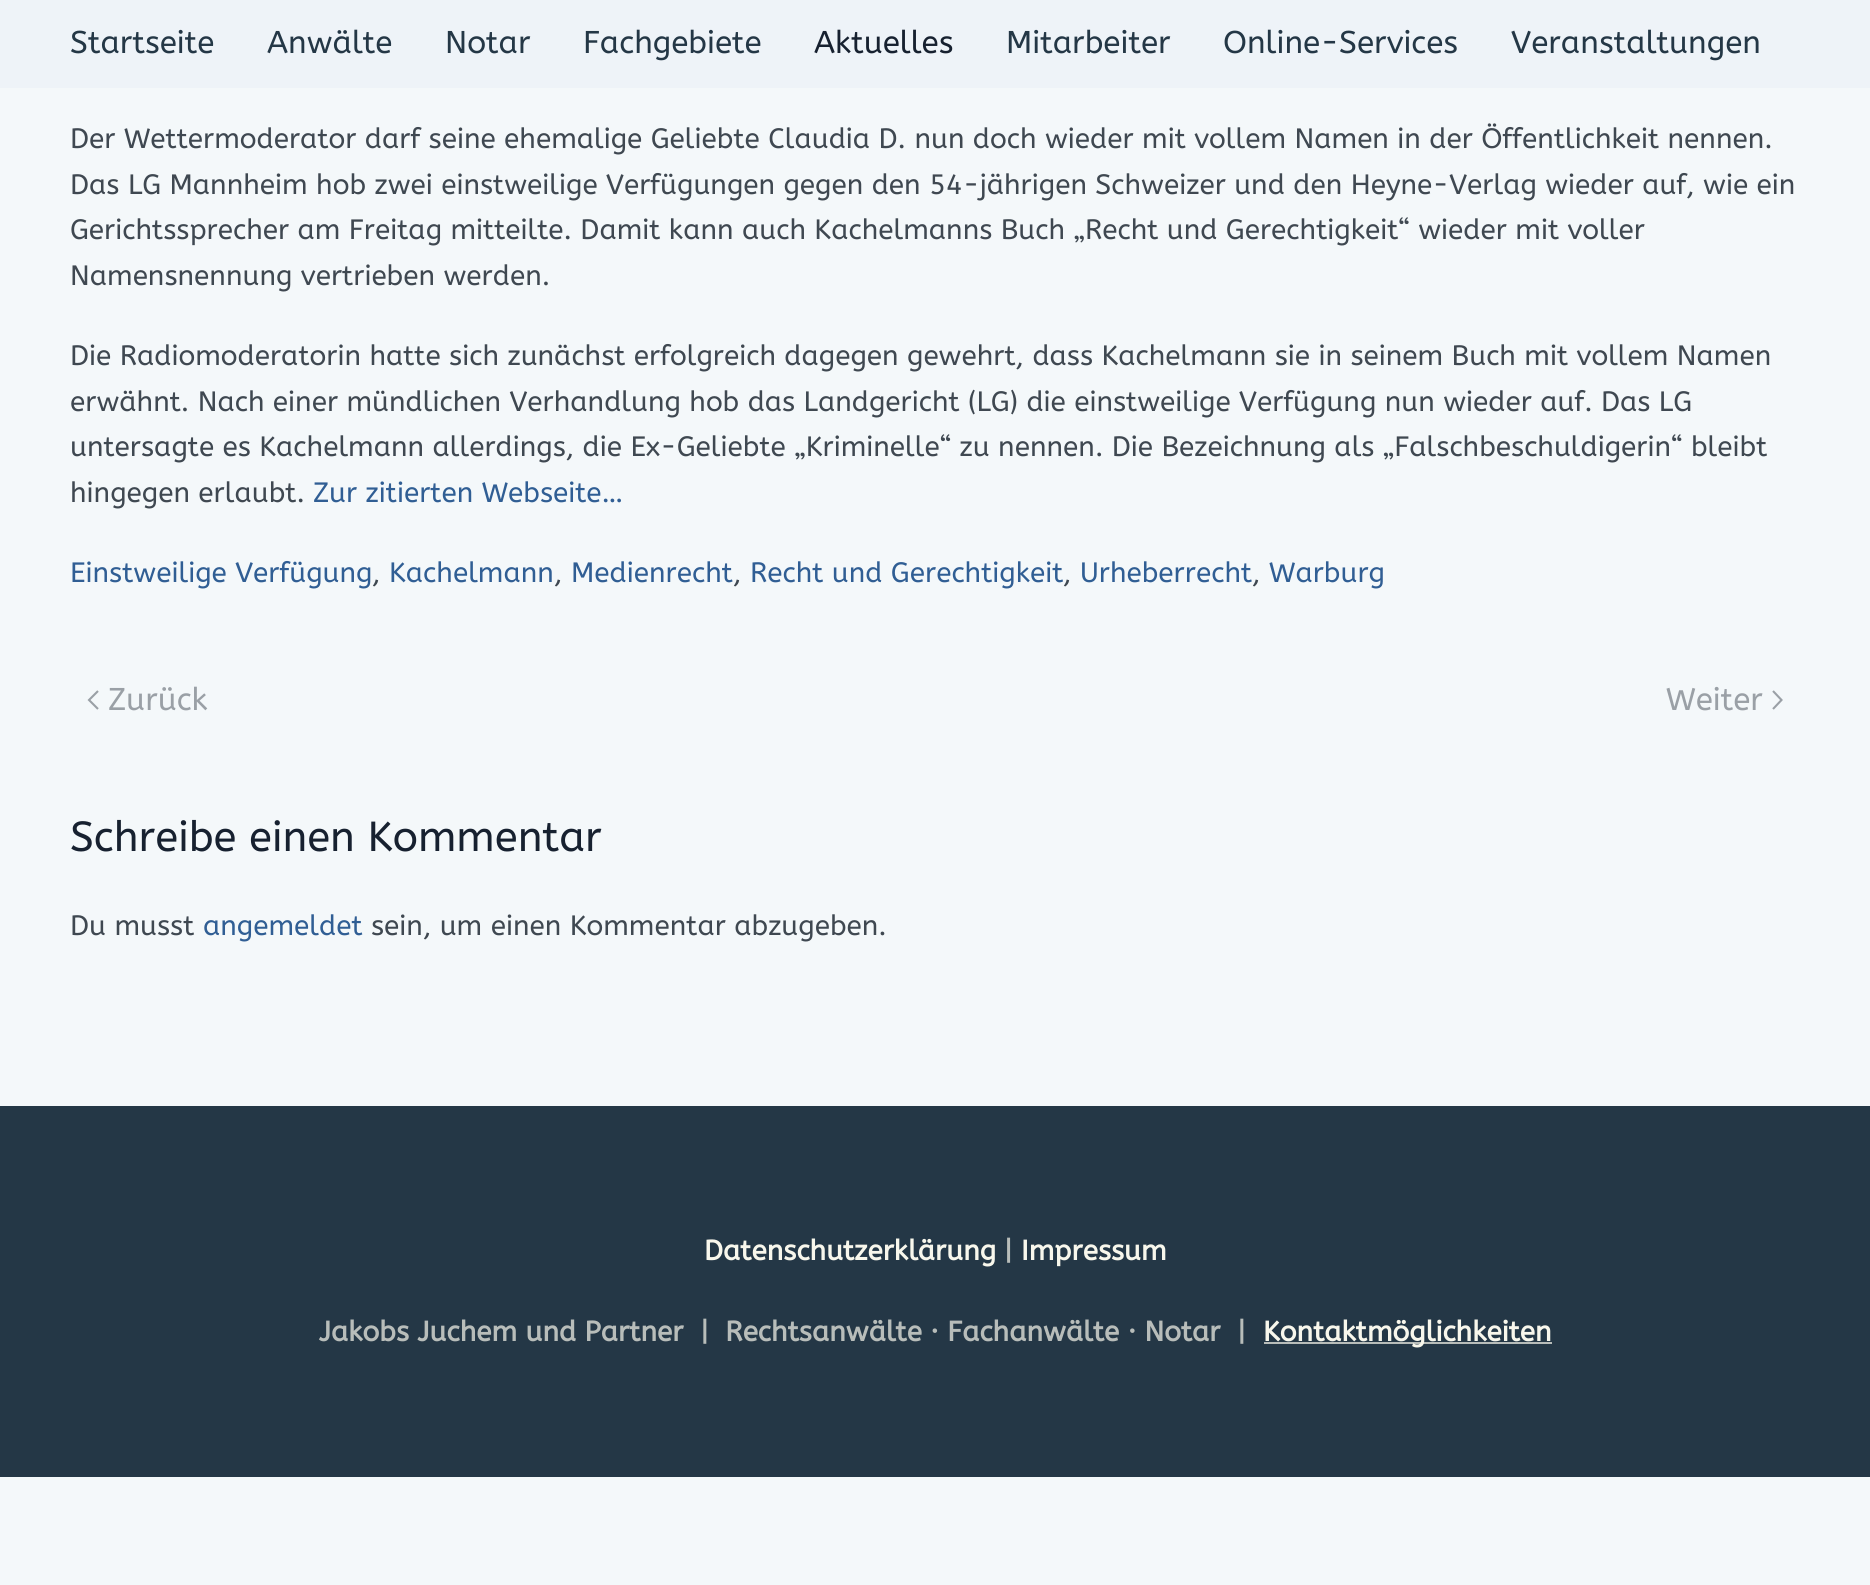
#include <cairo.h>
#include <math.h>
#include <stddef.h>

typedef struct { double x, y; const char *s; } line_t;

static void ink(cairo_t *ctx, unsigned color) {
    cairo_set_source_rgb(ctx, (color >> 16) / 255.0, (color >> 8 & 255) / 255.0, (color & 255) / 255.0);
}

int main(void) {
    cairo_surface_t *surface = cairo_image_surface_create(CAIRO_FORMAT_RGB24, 1870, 1585);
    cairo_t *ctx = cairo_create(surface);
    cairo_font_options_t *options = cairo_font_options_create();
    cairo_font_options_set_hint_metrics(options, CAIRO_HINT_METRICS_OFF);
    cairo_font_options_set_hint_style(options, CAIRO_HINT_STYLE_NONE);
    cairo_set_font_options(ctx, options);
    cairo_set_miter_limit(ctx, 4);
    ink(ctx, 0xF4F8FA);
    cairo_paint(ctx);
    ink(ctx, 0xEEF3F8);
    cairo_rectangle(ctx, 0, 0, 1870, 88);
    cairo_fill(ctx);
    cairo_select_font_face(ctx, "ABeeZee", CAIRO_FONT_SLANT_NORMAL, CAIRO_FONT_WEIGHT_NORMAL);
    cairo_set_font_size(ctx, 31.5);
    ink(ctx, 0x243746);
    {
        static const line_t items[] = {
            {70, 53, "Startseite"},
            {267, 53, "Anwälte"},
            {445, 53, "Notar"},
            {583, 53, "Fachgebiete"},
        };
        for (size_t i = 0; i < sizeof items / sizeof *items; i++) {
            cairo_move_to(ctx, items[i].x, items[i].y);
            cairo_show_text(ctx, items[i].s);
        }
    }
    ink(ctx, 0x172130);
    cairo_move_to(ctx, 814, 53);
    cairo_show_text(ctx, "Aktuelles");
    ink(ctx, 0x243746);
    {
        static const line_t items[] = {
            {1006, 53, "Mitarbeiter"},
            {1223, 53, "Online-Services"},
            {1511, 53, "Veranstaltungen"},
        };
        for (size_t i = 0; i < sizeof items / sizeof *items; i++) {
            cairo_move_to(ctx, items[i].x, items[i].y);
            cairo_show_text(ctx, items[i].s);
        }
    }
    cairo_set_font_size(ctx, 28);
    ink(ctx, 0x3F4851);
    {
        static const line_t items[] = {
            {70, 148, "Der Wettermoderator darf seine ehemalige Geliebte Claudia D. nun doch wieder mit vollem Namen in der Öffentlichkeit nennen."},
            {70, 194, "Das LG Mannheim hob zwei einstweilige Verfügungen gegen den 54-jährigen Schweizer und den Heyne-Verlag wieder auf, wie ein"},
            {70, 239, "Gerichtssprecher am Freitag mitteilte. Damit kann auch Kachelmanns Buch „Recht und Gerechtigkeit“ wieder mit voller"},
            {70, 285, "Namensnennung vertrieben werden."},
            {70, 365, "Die Radiomoderatorin hatte sich zunächst erfolgreich dagegen gewehrt, dass Kachelmann sie in seinem Buch mit vollem Namen"},
            {70, 411, "erwähnt. Nach einer mündlichen Verhandlung hob das Landgericht (LG) die einstweilige Verfügung nun wieder auf. Das LG"},
            {70, 456, "untersagte es Kachelmann allerdings, die Ex-Geliebte „Kriminelle“ zu nennen. Die Bezeichnung als „Falschbeschuldigerin“ bleibt"},
            {70, 502, "hingegen erlaubt."},
        };
        for (size_t i = 0; i < sizeof items / sizeof *items; i++) {
            cairo_move_to(ctx, items[i].x, items[i].y);
            cairo_show_text(ctx, items[i].s);
        }
    }
    ink(ctx, 0x305E94);
    cairo_move_to(ctx, 313, 502);
    cairo_show_text(ctx, "Zur zitierten Webseite…");
    cairo_move_to(ctx, 70, 582);
    cairo_show_text(ctx, "Einstweilige Verfügung");
    ink(ctx, 0x3F4851);
    cairo_move_to(ctx, 372, 582);
    cairo_show_text(ctx, ",");
    ink(ctx, 0x305E94);
    cairo_move_to(ctx, 389, 582);
    cairo_show_text(ctx, "Kachelmann");
    ink(ctx, 0x3F4851);
    cairo_move_to(ctx, 554, 582);
    cairo_show_text(ctx, ",");
    ink(ctx, 0x305E94);
    cairo_move_to(ctx, 571, 582);
    cairo_show_text(ctx, "Medienrecht");
    ink(ctx, 0x3F4851);
    cairo_move_to(ctx, 733, 582);
    cairo_show_text(ctx, ",");
    ink(ctx, 0x305E94);
    cairo_move_to(ctx, 750, 582);
    cairo_show_text(ctx, "Recht und Gerechtigkeit");
    ink(ctx, 0x3F4851);
    cairo_move_to(ctx, 1063, 582);
    cairo_show_text(ctx, ",");
    ink(ctx, 0x305E94);
    cairo_move_to(ctx, 1080, 582);
    cairo_show_text(ctx, "Urheberrecht");
    ink(ctx, 0x3F4851);
    cairo_move_to(ctx, 1252, 582);
    cairo_show_text(ctx, ",");
    ink(ctx, 0x305E94);
    cairo_move_to(ctx, 1269, 582);
    cairo_show_text(ctx, "Warburg");
    cairo_new_path(ctx);
    cairo_move_to(ctx, 98, 691);
    cairo_line_to(ctx, 89, 700);
    cairo_line_to(ctx, 98, 709);
    ink(ctx, 0x9AA0A6);
    cairo_set_line_width(ctx, 2.1);
    cairo_stroke(ctx);
    cairo_set_font_size(ctx, 31.5);
    cairo_move_to(ctx, 108, 710);
    cairo_show_text(ctx, "Zurück");
    cairo_move_to(ctx, 1666, 710);
    cairo_show_text(ctx, "Weiter");
    cairo_new_path(ctx);
    cairo_move_to(ctx, 1773, 691);
    cairo_line_to(ctx, 1781.5, 700);
    cairo_line_to(ctx, 1773, 709);
    cairo_stroke(ctx);
    cairo_set_font_size(ctx, 42);
    ink(ctx, 0x172130);
    cairo_move_to(ctx, 70, 851);
    cairo_show_text(ctx, "Schreibe einen Kommentar");
    cairo_set_font_size(ctx, 28);
    ink(ctx, 0x3F4851);
    cairo_move_to(ctx, 70, 935);
    cairo_show_text(ctx, "Du musst");
    ink(ctx, 0x305E94);
    cairo_move_to(ctx, 203, 935);
    cairo_show_text(ctx, "angemeldet");
    ink(ctx, 0x3F4851);
    cairo_move_to(ctx, 371, 935);
    cairo_show_text(ctx, "sein, um einen Kommentar abzugeben.");
    ink(ctx, 0x243746);
    cairo_rectangle(ctx, 0, 1106, 1870, 371);
    cairo_fill(ctx);
    cairo_select_font_face(ctx, "ABeeZee", CAIRO_FONT_SLANT_NORMAL, CAIRO_FONT_WEIGHT_BOLD);
    ink(ctx, 0xF8F7EC);
    cairo_move_to(ctx, 704, 1260);
    cairo_show_text(ctx, "Datenschutzerklärung");
    ink(ctx, 0xB8BDBA);
    cairo_move_to(ctx, 1004, 1260);
    cairo_show_text(ctx, "|");
    ink(ctx, 0xF8F7EC);
    cairo_move_to(ctx, 1021, 1260);
    cairo_show_text(ctx, "Impressum");
    ink(ctx, 0xB8BDBA);
    cairo_move_to(ctx, 319, 1341);
    cairo_show_text(ctx, "Jakobs Juchem und Partner  |  Rechtsanwälte · Fachanwälte · Notar  |");
    cairo_rectangle(ctx, 1264, 1342, 288, 2);
    cairo_fill(ctx);
    ink(ctx, 0xF8F7EC);
    cairo_move_to(ctx, 1263, 1341);
    cairo_show_text(ctx, "Kontaktmöglichkeiten");
    cairo_surface_write_to_png(surface, "image.png");
    cairo_font_options_destroy(options);
    cairo_destroy(ctx);
    cairo_surface_destroy(surface);
    return 0;
}
